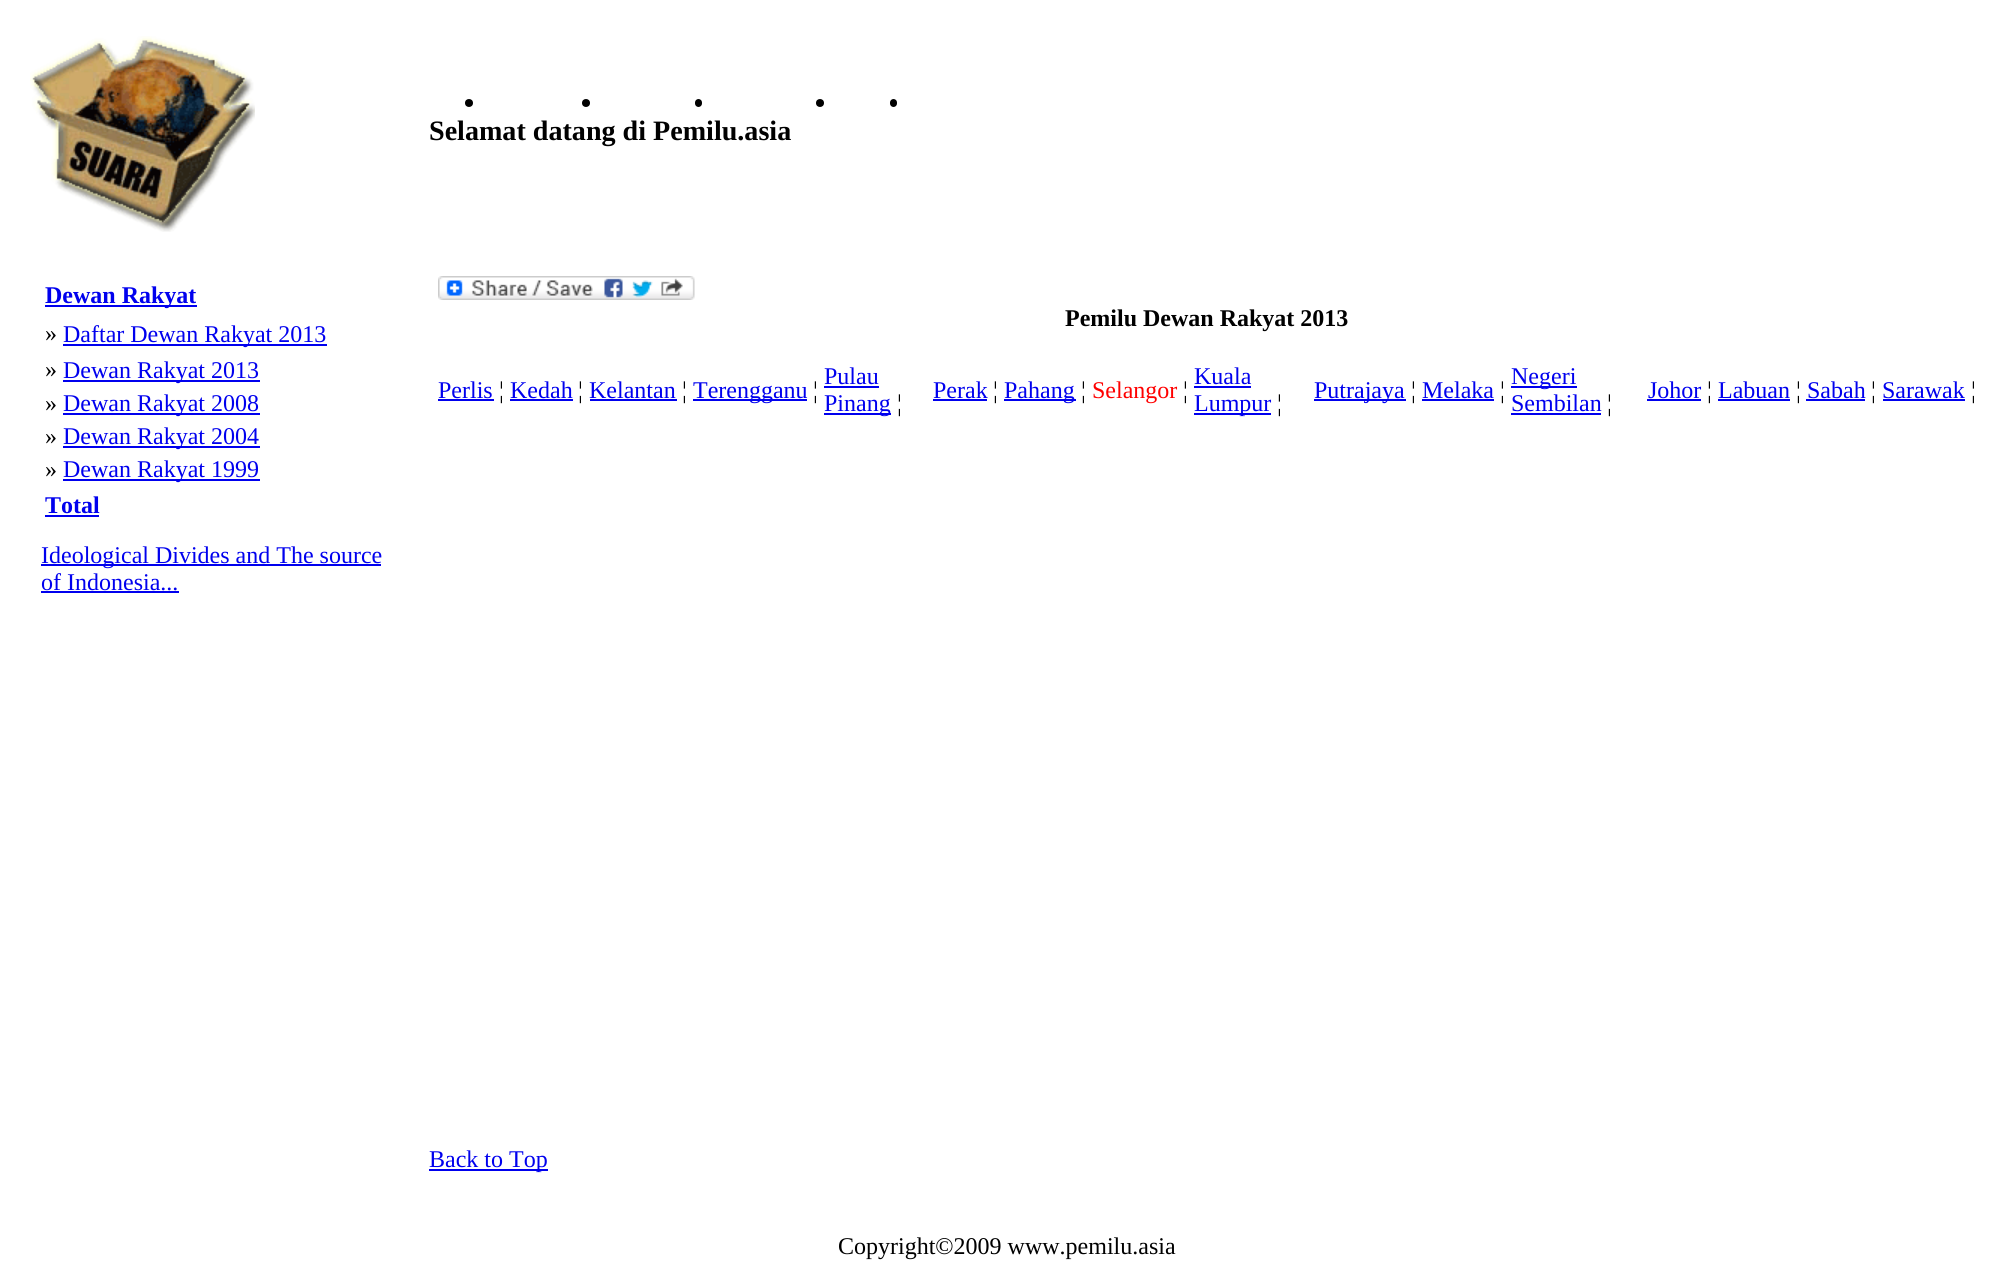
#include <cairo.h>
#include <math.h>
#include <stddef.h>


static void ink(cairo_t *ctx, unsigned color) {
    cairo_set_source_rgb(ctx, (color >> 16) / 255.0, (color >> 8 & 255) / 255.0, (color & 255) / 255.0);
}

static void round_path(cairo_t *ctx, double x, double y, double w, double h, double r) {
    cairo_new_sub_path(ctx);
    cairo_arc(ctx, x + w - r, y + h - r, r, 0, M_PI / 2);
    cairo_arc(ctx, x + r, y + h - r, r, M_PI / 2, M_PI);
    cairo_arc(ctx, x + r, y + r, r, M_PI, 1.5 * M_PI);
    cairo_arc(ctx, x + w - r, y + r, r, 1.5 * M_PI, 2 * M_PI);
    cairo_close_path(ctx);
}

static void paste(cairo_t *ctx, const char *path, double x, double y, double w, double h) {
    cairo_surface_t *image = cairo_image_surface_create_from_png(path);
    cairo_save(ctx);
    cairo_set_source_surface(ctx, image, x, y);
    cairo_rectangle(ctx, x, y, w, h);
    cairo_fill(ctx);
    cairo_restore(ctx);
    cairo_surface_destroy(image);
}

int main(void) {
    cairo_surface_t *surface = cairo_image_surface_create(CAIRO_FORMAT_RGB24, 2014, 1288);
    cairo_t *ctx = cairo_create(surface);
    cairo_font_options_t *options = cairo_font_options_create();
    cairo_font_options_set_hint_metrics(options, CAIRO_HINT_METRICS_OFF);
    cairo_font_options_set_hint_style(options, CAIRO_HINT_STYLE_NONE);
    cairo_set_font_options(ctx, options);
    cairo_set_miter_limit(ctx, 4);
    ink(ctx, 0xFFFFFF);
    cairo_paint(ctx);
    paste(ctx, "media/1.png", 30, 36, 225, 196);
    ink(ctx, 0x000000);
    cairo_arc(ctx, 469, 103, 4, 0, 2 * M_PI);
    cairo_fill(ctx);
    cairo_arc(ctx, 586, 103, 4, 0, 2 * M_PI);
    cairo_fill(ctx);
    round_path(ctx, 695, 99, 7, 8, 3.5);
    cairo_fill(ctx);
    cairo_arc(ctx, 820, 103, 4, 0, 2 * M_PI);
    cairo_fill(ctx);
    round_path(ctx, 890, 99, 7, 8, 3.5);
    cairo_fill(ctx);
    cairo_select_font_face(ctx, "Liberation Serif", CAIRO_FONT_SLANT_NORMAL, CAIRO_FONT_WEIGHT_BOLD);
    cairo_set_font_size(ctx, 28.1);
    cairo_move_to(ctx, 429, 140);
    cairo_show_text(ctx, "Selamat datang di Pemilu.asia");
    ink(ctx, 0x0000EE);
    cairo_rectangle(ctx, 45, 305, 152, 2);
    cairo_fill(ctx);
    cairo_set_font_size(ctx, 24);
    cairo_move_to(ctx, 45, 303);
    cairo_show_text(ctx, "Dewan Rakyat");
    cairo_select_font_face(ctx, "Liberation Serif", CAIRO_FONT_SLANT_NORMAL, CAIRO_FONT_WEIGHT_NORMAL);
    ink(ctx, 0x000000);
    cairo_move_to(ctx, 45, 341);
    cairo_show_text(ctx, "»");
    ink(ctx, 0x0000EE);
    cairo_rectangle(ctx, 63, 344, 264, 2);
    cairo_fill(ctx);
    cairo_move_to(ctx, 63, 342);
    cairo_show_text(ctx, "Daftar Dewan Rakyat 2013");
    ink(ctx, 0x000000);
    cairo_move_to(ctx, 45, 377);
    cairo_show_text(ctx, "»");
    ink(ctx, 0x0000EE);
    cairo_rectangle(ctx, 63, 380, 197, 2);
    cairo_fill(ctx);
    cairo_move_to(ctx, 63, 378);
    cairo_show_text(ctx, "Dewan Rakyat 2013");
    ink(ctx, 0x000000);
    cairo_move_to(ctx, 45, 411);
    cairo_show_text(ctx, "»");
    ink(ctx, 0x0000EE);
    cairo_rectangle(ctx, 63, 413, 197, 2);
    cairo_fill(ctx);
    cairo_move_to(ctx, 63, 411);
    cairo_show_text(ctx, "Dewan Rakyat 2008");
    ink(ctx, 0x000000);
    cairo_move_to(ctx, 45, 444);
    cairo_show_text(ctx, "»");
    ink(ctx, 0x0000EE);
    cairo_rectangle(ctx, 63, 446, 197, 2);
    cairo_fill(ctx);
    cairo_move_to(ctx, 63, 444);
    cairo_show_text(ctx, "Dewan Rakyat 2004");
    ink(ctx, 0x000000);
    cairo_move_to(ctx, 45, 477);
    cairo_show_text(ctx, "»");
    ink(ctx, 0x0000EE);
    cairo_rectangle(ctx, 63, 479, 197, 2);
    cairo_fill(ctx);
    cairo_move_to(ctx, 63, 477);
    cairo_show_text(ctx, "Dewan Rakyat 1999");
    cairo_select_font_face(ctx, "Liberation Serif", CAIRO_FONT_SLANT_NORMAL, CAIRO_FONT_WEIGHT_BOLD);
    cairo_move_to(ctx, 45, 513);
    cairo_show_text(ctx, "Total");
    cairo_rectangle(ctx, 45, 515, 54, 2);
    cairo_fill(ctx);
    cairo_rectangle(ctx, 41, 564, 340, 2);
    cairo_fill(ctx);
    cairo_select_font_face(ctx, "Liberation Serif", CAIRO_FONT_SLANT_NORMAL, CAIRO_FONT_WEIGHT_NORMAL);
    cairo_move_to(ctx, 41, 563);
    cairo_show_text(ctx, "Ideological Divides and The source");
    cairo_move_to(ctx, 41, 590);
    cairo_show_text(ctx, "of Indonesia...");
    cairo_rectangle(ctx, 41, 591, 138, 2);
    cairo_fill(ctx);
    paste(ctx, "media/2.png", 438, 276, 257, 24);
    cairo_select_font_face(ctx, "Liberation Serif", CAIRO_FONT_SLANT_NORMAL, CAIRO_FONT_WEIGHT_BOLD);
    ink(ctx, 0x000000);
    cairo_move_to(ctx, 1065, 326);
    cairo_show_text(ctx, "Pemilu Dewan Rakyat 2013");
    cairo_select_font_face(ctx, "Liberation Serif", CAIRO_FONT_SLANT_NORMAL, CAIRO_FONT_WEIGHT_NORMAL);
    ink(ctx, 0x0000EE);
    cairo_move_to(ctx, 438, 398);
    cairo_show_text(ctx, "Perlis");
    cairo_rectangle(ctx, 438, 399, 56, 2);
    cairo_fill(ctx);
    ink(ctx, 0x000000);
    cairo_move_to(ctx, 499, 398);
    cairo_show_text(ctx, "¦");
    ink(ctx, 0x0000EE);
    cairo_move_to(ctx, 510, 398);
    cairo_show_text(ctx, "Kedah");
    cairo_rectangle(ctx, 510, 399, 63, 2);
    cairo_fill(ctx);
    ink(ctx, 0x000000);
    cairo_move_to(ctx, 578, 398);
    cairo_show_text(ctx, "¦");
    ink(ctx, 0x0000EE);
    cairo_move_to(ctx, 589, 398);
    cairo_show_text(ctx, "Kelantan");
    cairo_rectangle(ctx, 590, 399, 87, 2);
    cairo_fill(ctx);
    ink(ctx, 0x000000);
    cairo_move_to(ctx, 682, 398);
    cairo_show_text(ctx, "¦");
    ink(ctx, 0x0000EE);
    cairo_rectangle(ctx, 693, 399, 114, 2);
    cairo_fill(ctx);
    cairo_move_to(ctx, 693, 398);
    cairo_show_text(ctx, "Terengganu");
    ink(ctx, 0x000000);
    cairo_move_to(ctx, 813, 398);
    cairo_show_text(ctx, "¦");
    ink(ctx, 0x0000EE);
    cairo_move_to(ctx, 824, 384);
    cairo_show_text(ctx, "Pulau");
    cairo_rectangle(ctx, 824, 386, 55, 2);
    cairo_fill(ctx);
    cairo_rectangle(ctx, 824, 413, 67, 2);
    cairo_fill(ctx);
    cairo_move_to(ctx, 824, 411);
    cairo_show_text(ctx, "Pinang");
    ink(ctx, 0x000000);
    cairo_move_to(ctx, 897, 411);
    cairo_show_text(ctx, "¦");
    ink(ctx, 0x0000EE);
    cairo_move_to(ctx, 933, 398);
    cairo_show_text(ctx, "Perak");
    cairo_rectangle(ctx, 933, 399, 54, 2);
    cairo_fill(ctx);
    ink(ctx, 0x000000);
    cairo_move_to(ctx, 993, 398);
    cairo_show_text(ctx, "¦");
    ink(ctx, 0x0000EE);
    cairo_rectangle(ctx, 1004, 399, 72, 2);
    cairo_fill(ctx);
    cairo_move_to(ctx, 1004, 398);
    cairo_show_text(ctx, "Pahang");
    ink(ctx, 0x000000);
    cairo_move_to(ctx, 1081, 398);
    cairo_show_text(ctx, "¦");
    ink(ctx, 0xFF0000);
    cairo_move_to(ctx, 1092, 398);
    cairo_show_text(ctx, "Selangor");
    ink(ctx, 0x000000);
    cairo_move_to(ctx, 1183, 398);
    cairo_show_text(ctx, "¦");
    ink(ctx, 0x0000EE);
    cairo_move_to(ctx, 1194, 384);
    cairo_show_text(ctx, "Kuala");
    cairo_rectangle(ctx, 1194, 386, 57, 2);
    cairo_fill(ctx);
    cairo_rectangle(ctx, 1194, 413, 77, 2);
    cairo_fill(ctx);
    cairo_move_to(ctx, 1194, 411);
    cairo_show_text(ctx, "Lumpur");
    ink(ctx, 0x000000);
    cairo_move_to(ctx, 1277, 411);
    cairo_show_text(ctx, "¦");
    ink(ctx, 0x0000EE);
    cairo_rectangle(ctx, 1314, 399, 92, 2);
    cairo_fill(ctx);
    cairo_move_to(ctx, 1314, 398);
    cairo_show_text(ctx, "Putrajaya");
    ink(ctx, 0x000000);
    cairo_move_to(ctx, 1411, 398);
    cairo_show_text(ctx, "¦");
    ink(ctx, 0x0000EE);
    cairo_move_to(ctx, 1422, 398);
    cairo_show_text(ctx, "Melaka");
    cairo_rectangle(ctx, 1422, 399, 72, 2);
    cairo_fill(ctx);
    ink(ctx, 0x000000);
    cairo_move_to(ctx, 1500, 398);
    cairo_show_text(ctx, "¦");
    ink(ctx, 0x0000EE);
    cairo_rectangle(ctx, 1511, 386, 66, 2);
    cairo_fill(ctx);
    cairo_move_to(ctx, 1511, 384);
    cairo_show_text(ctx, "Negeri");
    cairo_move_to(ctx, 1511, 411);
    cairo_show_text(ctx, "Sembilan");
    cairo_rectangle(ctx, 1511, 413, 90, 2);
    cairo_fill(ctx);
    ink(ctx, 0x000000);
    cairo_move_to(ctx, 1607, 411);
    cairo_show_text(ctx, "¦");
    ink(ctx, 0x0000EE);
    cairo_move_to(ctx, 1648, 398);
    cairo_show_text(ctx, "Johor");
    cairo_rectangle(ctx, 1647, 399, 54, 2);
    cairo_fill(ctx);
    ink(ctx, 0x000000);
    cairo_move_to(ctx, 1707, 398);
    cairo_show_text(ctx, "¦");
    ink(ctx, 0x0000EE);
    cairo_move_to(ctx, 1718, 398);
    cairo_show_text(ctx, "Labuan");
    cairo_rectangle(ctx, 1718, 399, 72, 2);
    cairo_fill(ctx);
    ink(ctx, 0x000000);
    cairo_move_to(ctx, 1796, 398);
    cairo_show_text(ctx, "¦");
    ink(ctx, 0x0000EE);
    cairo_move_to(ctx, 1807, 398);
    cairo_show_text(ctx, "Sabah");
    cairo_rectangle(ctx, 1806, 399, 59, 2);
    cairo_fill(ctx);
    ink(ctx, 0x000000);
    cairo_move_to(ctx, 1871, 398);
    cairo_show_text(ctx, "¦");
    ink(ctx, 0x0000EE);
    cairo_move_to(ctx, 1882, 398);
    cairo_show_text(ctx, "Sarawak");
    cairo_rectangle(ctx, 1883, 399, 82, 2);
    cairo_fill(ctx);
    ink(ctx, 0x000000);
    cairo_move_to(ctx, 1971, 398);
    cairo_show_text(ctx, "¦");
    ink(ctx, 0x0000EE);
    cairo_rectangle(ctx, 429, 1169, 119, 2);
    cairo_fill(ctx);
    cairo_move_to(ctx, 429, 1167);
    cairo_show_text(ctx, "Back to Top");
    ink(ctx, 0x000000);
    cairo_move_to(ctx, 838, 1254);
    cairo_show_text(ctx, "Copyright©2009 www.pemilu.asia");
    cairo_surface_write_to_png(surface, "image.png");
    cairo_font_options_destroy(options);
    cairo_destroy(ctx);
    cairo_surface_destroy(surface);
    return 0;
}
